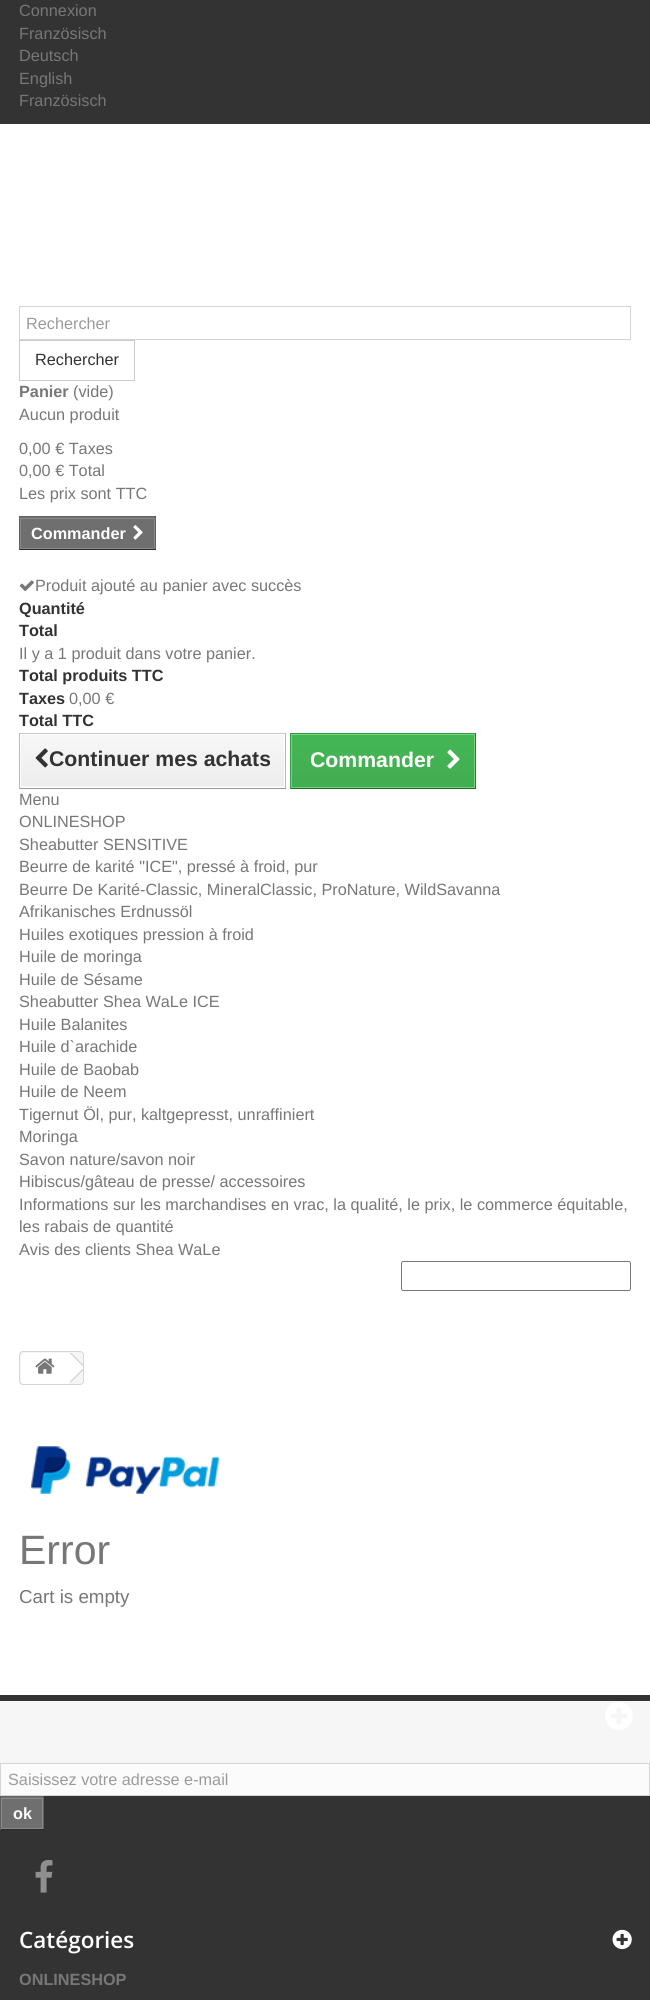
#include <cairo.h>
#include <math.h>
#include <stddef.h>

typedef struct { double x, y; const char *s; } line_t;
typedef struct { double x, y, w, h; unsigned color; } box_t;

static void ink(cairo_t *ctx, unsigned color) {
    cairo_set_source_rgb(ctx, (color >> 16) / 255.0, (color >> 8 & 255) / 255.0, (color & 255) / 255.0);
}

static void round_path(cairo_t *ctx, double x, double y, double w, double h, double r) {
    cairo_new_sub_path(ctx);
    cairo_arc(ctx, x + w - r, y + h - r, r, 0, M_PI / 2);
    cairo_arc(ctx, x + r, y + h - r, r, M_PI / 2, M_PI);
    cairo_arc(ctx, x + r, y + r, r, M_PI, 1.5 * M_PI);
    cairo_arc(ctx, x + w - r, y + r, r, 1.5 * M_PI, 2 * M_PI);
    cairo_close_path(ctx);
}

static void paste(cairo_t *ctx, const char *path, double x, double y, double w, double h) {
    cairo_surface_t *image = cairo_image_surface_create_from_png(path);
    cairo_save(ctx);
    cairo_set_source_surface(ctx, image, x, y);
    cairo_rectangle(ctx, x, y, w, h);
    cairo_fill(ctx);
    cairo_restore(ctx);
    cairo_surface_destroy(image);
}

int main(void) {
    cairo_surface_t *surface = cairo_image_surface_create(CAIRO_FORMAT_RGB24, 650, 2000);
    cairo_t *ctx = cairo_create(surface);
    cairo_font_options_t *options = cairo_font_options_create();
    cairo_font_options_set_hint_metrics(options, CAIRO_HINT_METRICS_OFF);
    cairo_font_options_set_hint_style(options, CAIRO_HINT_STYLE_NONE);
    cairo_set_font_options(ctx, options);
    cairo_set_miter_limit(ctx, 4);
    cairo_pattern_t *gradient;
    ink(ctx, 0xFFFFFF);
    cairo_paint(ctx);
    ink(ctx, 0x333333);
    cairo_rectangle(ctx, 0, 0, 650, 124);
    cairo_fill(ctx);
    cairo_select_font_face(ctx, "Liberation Sans", CAIRO_FONT_SLANT_NORMAL, CAIRO_FONT_WEIGHT_NORMAL);
    cairo_set_font_size(ctx, 16.25);
    ink(ctx, 0x777777);
    {
        static const line_t items[] = {
            {19, 16, "Connexion"},
            {19, 39, "Französisch"},
            {19, 61, "Deutsch"},
            {19, 84, "English"},
            {19, 106, "Französisch"},
        };
        for (size_t i = 0; i < sizeof items / sizeof *items; i++) {
            cairo_move_to(ctx, items[i].x, items[i].y);
            cairo_show_text(ctx, items[i].s);
        }
    }
    cairo_rectangle(ctx, 19.5, 306.5, 611, 33);
    ink(ctx, 0xD6D4D4);
    cairo_set_line_width(ctx, 1);
    cairo_stroke(ctx);
    ink(ctx, 0x9C9B9B);
    cairo_move_to(ctx, 26, 329);
    cairo_show_text(ctx, "Rechercher");
    cairo_rectangle(ctx, 19.5, 340.5, 115, 40);
    ink(ctx, 0xCCCCCC);
    cairo_stroke(ctx);
    ink(ctx, 0x333333);
    cairo_move_to(ctx, 35, 365);
    cairo_show_text(ctx, "Rechercher");
    cairo_select_font_face(ctx, "Liberation Sans", CAIRO_FONT_SLANT_NORMAL, CAIRO_FONT_WEIGHT_BOLD);
    ink(ctx, 0x777777);
    cairo_move_to(ctx, 19, 397);
    cairo_show_text(ctx, "Panier");
    cairo_select_font_face(ctx, "Liberation Sans", CAIRO_FONT_SLANT_NORMAL, CAIRO_FONT_WEIGHT_NORMAL);
    {
        static const line_t items[] = {
            {73, 397, "(vide)"},
            {19, 420, "Aucun produit"},
            {19, 454, "0,00 € Taxes"},
            {19, 476, "0,00 € Total"},
            {19, 499, "Les prix sont TTC"},
        };
        for (size_t i = 0; i < sizeof items / sizeof *items; i++) {
            cairo_move_to(ctx, items[i].x, items[i].y);
            cairo_show_text(ctx, items[i].s);
        }
    }
    {
        static const box_t items[] = {
            {20, 517, 135, 31, 0x6F6F6F},
            {19, 516, 137, 1, 0x666666},
            {155, 516, 1, 34, 0x5F5F5F},
            {19, 549, 137, 1, 0x292929},
            {19, 516, 1, 34, 0x5F5F5F},
        };
        for (size_t i = 0; i < sizeof items / sizeof *items; i++) {
            ink(ctx, items[i].color);
            cairo_rectangle(ctx, items[i].x, items[i].y, items[i].w, items[i].h);
            cairo_fill(ctx);
        }
    }
    cairo_rectangle(ctx, 20.5, 518.5, 134, 30);
    ink(ctx, 0x8B8A8A);
    cairo_stroke(ctx);
    cairo_select_font_face(ctx, "Liberation Sans", CAIRO_FONT_SLANT_NORMAL, CAIRO_FONT_WEIGHT_BOLD);
    ink(ctx, 0xFFFFFF);
    cairo_move_to(ctx, 31, 539);
    cairo_show_text(ctx, "Commander");
    paste(ctx, "media/1.png", 133, 525, 10, 15);
    paste(ctx, "media/2.png", 19, 580, 15, 12);
    cairo_select_font_face(ctx, "Liberation Sans", CAIRO_FONT_SLANT_NORMAL, CAIRO_FONT_WEIGHT_NORMAL);
    ink(ctx, 0x777777);
    cairo_move_to(ctx, 35, 591);
    cairo_show_text(ctx, "Produit ajouté au panier avec succès");
    cairo_select_font_face(ctx, "Liberation Sans", CAIRO_FONT_SLANT_NORMAL, CAIRO_FONT_WEIGHT_BOLD);
    ink(ctx, 0x333333);
    cairo_move_to(ctx, 19, 614);
    cairo_show_text(ctx, "Quantité");
    cairo_move_to(ctx, 19, 636);
    cairo_show_text(ctx, "Total");
    cairo_select_font_face(ctx, "Liberation Sans", CAIRO_FONT_SLANT_NORMAL, CAIRO_FONT_WEIGHT_NORMAL);
    ink(ctx, 0x777777);
    cairo_move_to(ctx, 19, 659);
    cairo_show_text(ctx, "Il y a 1 produit dans votre panier.");
    cairo_select_font_face(ctx, "Liberation Sans", CAIRO_FONT_SLANT_NORMAL, CAIRO_FONT_WEIGHT_BOLD);
    ink(ctx, 0x333333);
    cairo_move_to(ctx, 19, 681);
    cairo_show_text(ctx, "Total produits TTC");
    cairo_move_to(ctx, 19, 704);
    cairo_show_text(ctx, "Taxes");
    cairo_select_font_face(ctx, "Liberation Sans", CAIRO_FONT_SLANT_NORMAL, CAIRO_FONT_WEIGHT_NORMAL);
    ink(ctx, 0x777777);
    cairo_move_to(ctx, 69, 704);
    cairo_show_text(ctx, "0,00 €");
    cairo_select_font_face(ctx, "Liberation Sans", CAIRO_FONT_SLANT_NORMAL, CAIRO_FONT_WEIGHT_BOLD);
    ink(ctx, 0x333333);
    cairo_move_to(ctx, 19, 726);
    cairo_show_text(ctx, "Total TTC");
    {
        static const box_t items[] = {
            {19, 733, 267, 1, 0xCACACA},
            {285, 733, 1, 56, 0xB7B7B7},
            {19, 788, 267, 1, 0x9A9A9A},
            {19, 733, 1, 56, 0xB7B7B7},
            {21, 786, 263, 1, 0xF7F7F7},
        };
        for (size_t i = 0; i < sizeof items / sizeof *items; i++) {
            ink(ctx, items[i].color);
            cairo_rectangle(ctx, items[i].x, items[i].y, items[i].w, items[i].h);
            cairo_fill(ctx);
        }
    }
    gradient = cairo_pattern_create_linear(153, 735, 153, 786);
    cairo_pattern_add_color_stop_rgba(gradient, 0, 0.969, 0.969, 0.969, 1);
    cairo_pattern_add_color_stop_rgba(gradient, 1, 0.929, 0.929, 0.929, 1);
    cairo_set_source(ctx, gradient);
    cairo_pattern_destroy(gradient);
    cairo_rectangle(ctx, 21, 735, 263, 51);
    cairo_fill(ctx);
    paste(ctx, "media/3.png", 35, 748, 13, 20);
    cairo_set_font_size(ctx, 21.25);
    ink(ctx, 0x333333);
    cairo_move_to(ctx, 49, 766);
    cairo_show_text(ctx, "Continuer mes achats");
    gradient = cairo_pattern_create_linear(383, 734, 383, 788);
    cairo_pattern_add_color_stop_rgba(gradient, 0, 0.263, 0.718, 0.329, 1);
    cairo_pattern_add_color_stop_rgba(gradient, 1, 0.259, 0.675, 0.322, 1);
    cairo_set_source(ctx, gradient);
    cairo_pattern_destroy(gradient);
    cairo_rectangle(ctx, 292, 735, 182, 52);
    cairo_fill(ctx);
    {
        static const box_t items[] = {
            {290, 733, 186, 1, 0x399A49},
            {475, 733, 1, 56, 0x247F32},
            {290, 788, 186, 1, 0x1A6D27},
            {290, 733, 1, 56, 0x399A49},
        };
        for (size_t i = 0; i < sizeof items / sizeof *items; i++) {
            ink(ctx, items[i].color);
            cairo_rectangle(ctx, items[i].x, items[i].y, items[i].w, items[i].h);
            cairo_fill(ctx);
        }
    }
    cairo_rectangle(ctx, 291.5, 734.5, 183, 53);
    ink(ctx, 0x74D578);
    cairo_stroke(ctx);
    ink(ctx, 0xFFFFFF);
    cairo_move_to(ctx, 310, 767);
    cairo_show_text(ctx, "Commander");
    paste(ctx, "media/4.png", 447, 749, 13, 20);
    cairo_select_font_face(ctx, "Liberation Sans", CAIRO_FONT_SLANT_NORMAL, CAIRO_FONT_WEIGHT_NORMAL);
    cairo_set_font_size(ctx, 16.25);
    ink(ctx, 0x777777);
    {
        static const line_t items[] = {
            {19, 805, "Menu"},
            {19, 827, "ONLINESHOP"},
            {19, 850, "Sheabutter SENSITIVE"},
            {19, 872, "Beurre de karité \"ICE\", pressé à froid, pur"},
            {19, 895, "Beurre De Karité-Classic, MineralClassic, ProNature, WildSavanna"},
            {19, 917, "Afrikanisches Erdnussöl"},
            {19, 940, "Huiles exotiques pression à froid"},
            {19, 962, "Huile de moringa"},
            {19, 985, "Huile de Sésame"},
            {19, 1007, "Sheabutter Shea WaLe ICE"},
            {19, 1030, "Huile Balanites"},
            {19, 1052, "Huile d`arachide"},
            {19, 1075, "Huile de Baobab"},
            {19, 1097, "Huile de Neem"},
            {19, 1120, "Tigernut Öl, pur, kaltgepresst, unraffiniert"},
            {19, 1142, "Moringa"},
            {19, 1165, "Savon nature/savon noir"},
            {19, 1187, "Hibiscus/gâteau de presse/ accessoires"},
            {19, 1210, "Informations sur les marchandises en vrac, la qualité, le prix, le commerce équitable,"},
            {19, 1232, "les rabais de quantité"},
            {19, 1255, "Avis des clients Shea WaLe"},
        };
        for (size_t i = 0; i < sizeof items / sizeof *items; i++) {
            cairo_move_to(ctx, items[i].x, items[i].y);
            cairo_show_text(ctx, items[i].s);
        }
    }
    round_path(ctx, 401.5, 1261.5, 229, 29, 2);
    ink(ctx, 0x767676);
    cairo_stroke(ctx);
    ink(ctx, 0xF6F6F6);
    round_path(ctx, 19.5, 1351.5, 64, 33, 3.5);
    cairo_fill_preserve(ctx);
    ink(ctx, 0xD6D4D4);
    cairo_stroke(ctx);
    ink(ctx, 0xFFFFFF);
    cairo_new_path(ctx);
    cairo_move_to(ctx, 25, 1353);
    cairo_line_to(ctx, 69, 1353);
    cairo_line_to(ctx, 69, 1384);
    cairo_line_to(ctx, 25, 1384);
    cairo_curve_to(ctx, 23, 1384, 21, 1382, 21, 1380);
    cairo_line_to(ctx, 21, 1357);
    cairo_curve_to(ctx, 21, 1355, 23, 1353, 25, 1353);
    cairo_close_path(ctx);
    cairo_fill(ctx);
    paste(ctx, "media/5.png", 35, 1358, 20, 16);
    cairo_new_path(ctx);
    cairo_move_to(ctx, 72, 1353.5);
    cairo_line_to(ctx, 71.5, 1353);
    cairo_line_to(ctx, 68.5, 1353);
    cairo_line_to(ctx, 68, 1353.5);
    cairo_line_to(ctx, 56, 1365.5);
    cairo_curve_to(ctx, 55, 1366.5, 55, 1368, 56, 1369);
    cairo_line_to(ctx, 68, 1381.5);
    cairo_curve_to(ctx, 69, 1382.5, 71, 1382.5, 72, 1381.5);
    cairo_line_to(ctx, 83, 1370);
    cairo_line_to(ctx, 83, 1364.5);
    cairo_close_path(ctx);
    cairo_fill(ctx);
    ink(ctx, 0xD6D4D4);
    cairo_new_path(ctx);
    cairo_move_to(ctx, 83, 1366.5);
    cairo_line_to(ctx, 70, 1353.5);
    cairo_line_to(ctx, 70.5, 1353);
    cairo_line_to(ctx, 71.5, 1353);
    cairo_line_to(ctx, 83, 1364.5);
    cairo_close_path(ctx);
    cairo_move_to(ctx, 83, 1368.5);
    cairo_line_to(ctx, 83, 1370.5);
    cairo_line_to(ctx, 71, 1382.5);
    cairo_line_to(ctx, 70, 1381.5);
    cairo_close_path(ctx);
    cairo_fill(ctx);
    paste(ctx, "media/6.png", 31, 1446, 188, 48);
    cairo_set_font_size(ctx, 41);
    ink(ctx, 0x777777);
    cairo_move_to(ctx, 19, 1564);
    cairo_show_text(ctx, "Error");
    cairo_set_font_size(ctx, 18.75);
    cairo_move_to(ctx, 19, 1603);
    cairo_show_text(ctx, "Cart is empty");
    {
        static const box_t items[] = {
            {0, 1796, 650, 204, 0x333333},
            {0, 1701, 650, 62, 0xF6F6F6},
            {0, 1695, 650, 6, 0x333333},
        };
        for (size_t i = 0; i < sizeof items / sizeof *items; i++) {
            ink(ctx, items[i].color);
            cairo_rectangle(ctx, items[i].x, items[i].y, items[i].w, items[i].h);
            cairo_fill(ctx);
        }
    }
    paste(ctx, "media/7.png", 605, 1702, 28, 28);
    ink(ctx, 0xFBFBFB);
    cairo_rectangle(ctx, 0.5, 1763.5, 649, 32);
    cairo_fill_preserve(ctx);
    ink(ctx, 0xD6D4D4);
    cairo_stroke(ctx);
    cairo_set_font_size(ctx, 16.25);
    ink(ctx, 0x9C9B9B);
    cairo_move_to(ctx, 8, 1785);
    cairo_show_text(ctx, "Saisissez votre adresse e-mail");
    {
        static const box_t items[] = {
            {1, 1797, 42, 31, 0x6F6F6F},
            {0, 1796, 44, 1, 0x666666},
            {43, 1796, 1, 34, 0x5F5F5F},
            {0, 1829, 44, 1, 0x292929},
            {0, 1796, 1, 34, 0x5F5F5F},
        };
        for (size_t i = 0; i < sizeof items / sizeof *items; i++) {
            ink(ctx, items[i].color);
            cairo_rectangle(ctx, items[i].x, items[i].y, items[i].w, items[i].h);
            cairo_fill(ctx);
        }
    }
    cairo_rectangle(ctx, 1.5, 1798.5, 41, 30);
    ink(ctx, 0x8B8A8A);
    cairo_stroke(ctx);
    cairo_select_font_face(ctx, "Liberation Sans", CAIRO_FONT_SLANT_NORMAL, CAIRO_FONT_WEIGHT_BOLD);
    ink(ctx, 0xFFFFFF);
    cairo_move_to(ctx, 13, 1819);
    cairo_show_text(ctx, "ok");
    paste(ctx, "media/8.png", 35, 1860, 18, 33);
    cairo_select_font_face(ctx, "Open Sans SemiBold", CAIRO_FONT_SLANT_NORMAL, CAIRO_FONT_WEIGHT_NORMAL);
    cairo_set_font_size(ctx, 22.5);
    cairo_move_to(ctx, 19, 1948);
    cairo_show_text(ctx, "Catégories");
    paste(ctx, "media/9.png", 612, 1929, 20, 21);
    cairo_select_font_face(ctx, "Liberation Sans", CAIRO_FONT_SLANT_NORMAL, CAIRO_FONT_WEIGHT_BOLD);
    cairo_set_font_size(ctx, 16.25);
    ink(ctx, 0x777777);
    cairo_move_to(ctx, 19, 1985);
    cairo_show_text(ctx, "ONLINESHOP");
    cairo_surface_write_to_png(surface, "image.png");
    cairo_font_options_destroy(options);
    cairo_destroy(ctx);
    cairo_surface_destroy(surface);
    return 0;
}
